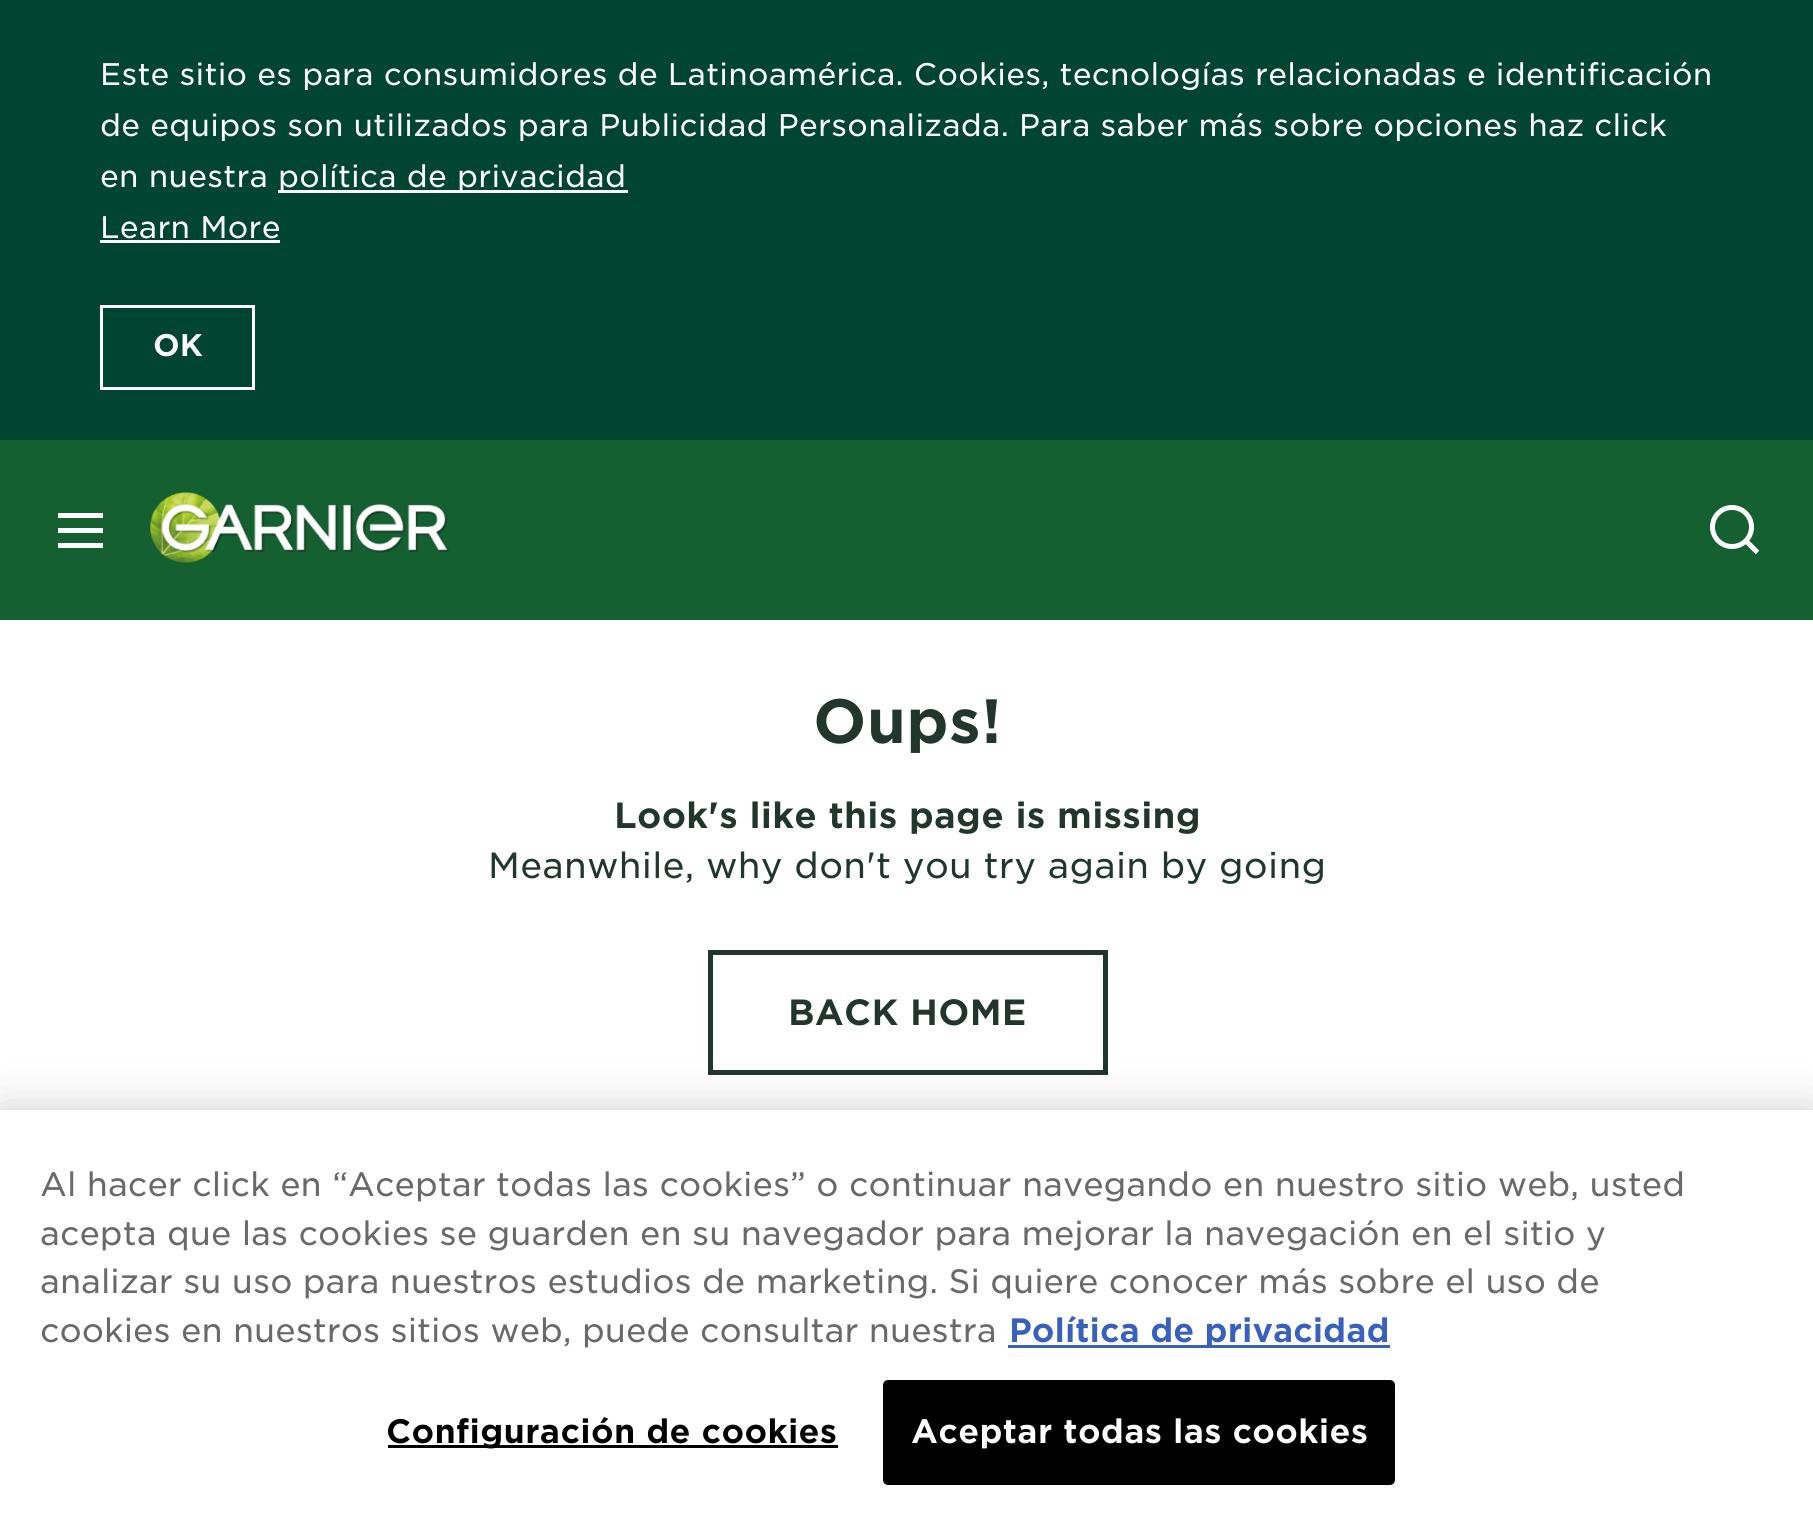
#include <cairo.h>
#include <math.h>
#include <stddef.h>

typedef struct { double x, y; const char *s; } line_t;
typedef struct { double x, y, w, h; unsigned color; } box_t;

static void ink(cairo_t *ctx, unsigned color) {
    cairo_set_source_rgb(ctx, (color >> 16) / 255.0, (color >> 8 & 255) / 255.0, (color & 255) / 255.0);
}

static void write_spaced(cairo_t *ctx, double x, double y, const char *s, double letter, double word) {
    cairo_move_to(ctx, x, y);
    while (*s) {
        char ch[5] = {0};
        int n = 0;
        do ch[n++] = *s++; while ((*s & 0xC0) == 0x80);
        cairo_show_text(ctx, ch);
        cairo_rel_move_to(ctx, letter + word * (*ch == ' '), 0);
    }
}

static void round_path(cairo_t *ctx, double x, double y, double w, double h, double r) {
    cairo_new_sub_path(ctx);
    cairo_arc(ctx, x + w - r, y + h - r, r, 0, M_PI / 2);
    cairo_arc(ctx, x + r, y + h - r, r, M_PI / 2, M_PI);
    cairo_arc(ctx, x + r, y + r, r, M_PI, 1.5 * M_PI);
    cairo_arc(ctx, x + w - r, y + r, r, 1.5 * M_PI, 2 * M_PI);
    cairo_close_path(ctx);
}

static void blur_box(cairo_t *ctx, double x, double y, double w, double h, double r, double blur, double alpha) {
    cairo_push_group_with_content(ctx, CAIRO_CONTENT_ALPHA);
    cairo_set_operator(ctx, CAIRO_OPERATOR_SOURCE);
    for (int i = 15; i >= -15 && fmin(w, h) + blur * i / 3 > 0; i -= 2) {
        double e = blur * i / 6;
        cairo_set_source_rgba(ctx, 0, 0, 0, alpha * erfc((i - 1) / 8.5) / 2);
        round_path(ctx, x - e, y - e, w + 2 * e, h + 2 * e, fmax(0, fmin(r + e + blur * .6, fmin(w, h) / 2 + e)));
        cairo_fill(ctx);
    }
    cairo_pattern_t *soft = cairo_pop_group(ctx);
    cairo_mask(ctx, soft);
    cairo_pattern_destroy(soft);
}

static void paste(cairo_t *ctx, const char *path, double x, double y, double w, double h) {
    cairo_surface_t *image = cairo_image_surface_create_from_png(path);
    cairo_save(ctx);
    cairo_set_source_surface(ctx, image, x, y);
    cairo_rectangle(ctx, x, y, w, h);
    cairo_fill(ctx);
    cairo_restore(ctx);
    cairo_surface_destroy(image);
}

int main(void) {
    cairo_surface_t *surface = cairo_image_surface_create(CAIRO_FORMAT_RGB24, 1813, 1524);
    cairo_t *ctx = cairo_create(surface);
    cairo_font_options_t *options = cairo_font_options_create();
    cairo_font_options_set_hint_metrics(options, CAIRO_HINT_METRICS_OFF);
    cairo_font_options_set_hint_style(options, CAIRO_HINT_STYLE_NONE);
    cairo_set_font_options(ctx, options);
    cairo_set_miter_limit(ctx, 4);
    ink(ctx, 0xFFFFFF);
    cairo_paint(ctx);
    ink(ctx, 0x004532);
    cairo_rectangle(ctx, 0, 0, 1813, 440);
    cairo_fill(ctx);
    cairo_select_font_face(ctx, "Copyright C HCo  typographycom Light", CAIRO_FONT_SLANT_NORMAL, CAIRO_FONT_WEIGHT_NORMAL);
    cairo_set_font_size(ctx, 30);
    ink(ctx, 0xFFFFFF);
    {
        static const line_t items[] = {
            {100, 85, "Este sitio es para consumidores de Latinoamérica. Cookies, tecnologías relacionadas e identificación"},
            {100, 136, "de equipos son utilizados para Publicidad Personalizada. Para saber más sobre opciones haz click"},
            {100, 187, "en nuestra"},
        };
        for (size_t i = 0; i < sizeof items / sizeof *items; i++) {
            write_spaced(ctx, items[i].x, items[i].y, items[i].s, 0.25, 0);
        }
    }
    cairo_rectangle(ctx, 278, 190, 350, 3);
    cairo_fill(ctx);
    write_spaced(ctx, 278, 187, "política de privacidad", 0.25, 0);
    write_spaced(ctx, 100, 238, "Learn More", 0.25, 0);
    cairo_rectangle(ctx, 100, 240, 180, 3);
    cairo_fill(ctx);
    cairo_rectangle(ctx, 101.5, 306.5, 152, 82);
    cairo_set_line_width(ctx, 3);
    cairo_stroke(ctx);
    cairo_select_font_face(ctx, "Copyright C HCo  typographycom", CAIRO_FONT_SLANT_NORMAL, CAIRO_FONT_WEIGHT_NORMAL);
    cairo_move_to(ctx, 153, 356);
    cairo_show_text(ctx, "OK");
    {
        static const box_t items[] = {
            {0, 440, 1813, 180, 0x156031},
            {58, 513, 45, 5, 0xFFFFFF},
            {58, 528, 45, 5, 0xFFFFFF},
            {58, 543, 45, 5, 0xFFFFFF},
        };
        for (size_t i = 0; i < sizeof items / sizeof *items; i++) {
            ink(ctx, items[i].color);
            cairo_rectangle(ctx, items[i].x, items[i].y, items[i].w, items[i].h);
            cairo_fill(ctx);
        }
    }
    paste(ctx, "media/1.png", 150, 492, 299, 71);
    cairo_arc(ctx, 1732, 527, 19.5, 0, 2 * M_PI);
    cairo_set_line_width(ctx, 5);
    cairo_stroke(ctx);
    cairo_new_path(ctx);
    cairo_move_to(ctx, 1746, 541);
    cairo_line_to(ctx, 1757.5, 552.5);
    cairo_set_line_join(ctx, CAIRO_LINE_JOIN_ROUND);
    cairo_stroke(ctx);
    cairo_set_font_size(ctx, 60);
    ink(ctx, 0x21362C);
    write_spaced(ctx, 813, 743, "Oups!", 0.25, 0);
    cairo_set_font_size(ctx, 35);
    write_spaced(ctx, 614, 828, "Look's like this page is missing", 0.25, 0);
    cairo_select_font_face(ctx, "Copyright C HCo  typographycom Light", CAIRO_FONT_SLANT_NORMAL, CAIRO_FONT_WEIGHT_NORMAL);
    write_spaced(ctx, 488, 878, "Meanwhile, why don't you try again by going", 0.25, 0);
    cairo_rectangle(ctx, 710.5, 952.5, 395, 120);
    cairo_set_line_join(ctx, CAIRO_LINE_JOIN_MITER);
    cairo_stroke(ctx);
    cairo_select_font_face(ctx, "Copyright C HCo  typographycom", CAIRO_FONT_SLANT_NORMAL, CAIRO_FONT_WEIGHT_NORMAL);
    write_spaced(ctx, 788, 1025, "BACK HOME", 0.25, 0);
    ink(ctx, 0x000000);
    blur_box(ctx, 0, 1110, 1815, 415, 0, 22.5, 0.2);
    ink(ctx, 0xFFFFFF);
    cairo_rectangle(ctx, 0, 1110, 1813, 414);
    cairo_fill(ctx);
    cairo_select_font_face(ctx, "Copyright C HCo  typographycom Light", CAIRO_FONT_SLANT_NORMAL, CAIRO_FONT_WEIGHT_NORMAL);
    cairo_set_font_size(ctx, 32.52);
    ink(ctx, 0x696969);
    {
        static const line_t items[] = {
            {40, 1196, "Al hacer click en “Aceptar todas las cookies” o continuar navegando en nuestro sitio web, usted"},
            {40, 1245, "acepta que las cookies se guarden en su navegador para mejorar la navegación en el sitio y"},
            {40, 1293, "analizar su uso para nuestros estudios de marketing. Si quiere conocer más sobre el uso de"},
            {40, 1342, "cookies en nuestros sitios web, puede consultar nuestra"},
        };
        for (size_t i = 0; i < sizeof items / sizeof *items; i++) {
            cairo_move_to(ctx, items[i].x, items[i].y);
            cairo_show_text(ctx, items[i].s);
        }
    }
    ink(ctx, 0x3860BE);
    cairo_rectangle(ctx, 1008, 1345, 382, 3);
    cairo_fill(ctx);
    cairo_select_font_face(ctx, "Copyright C HCo  typographycom", CAIRO_FONT_SLANT_NORMAL, CAIRO_FONT_WEIGHT_NORMAL);
    cairo_move_to(ctx, 1009, 1342);
    cairo_show_text(ctx, "Política de privacidad");
    ink(ctx, 0x000000);
    cairo_rectangle(ctx, 388, 1445, 450, 3);
    cairo_fill(ctx);
    write_spaced(ctx, 386, 1443, "Configuración de cookies", 0.3, 0);
    round_path(ctx, 884.5, 1381.5, 509, 102, 3.5);
    cairo_fill_preserve(ctx);
    cairo_set_line_width(ctx, 3);
    cairo_stroke(ctx);
    ink(ctx, 0xFFFFFF);
    write_spaced(ctx, 911, 1443, "Aceptar todas las cookies", 0.3, 0);
    cairo_surface_write_to_png(surface, "image.png");
    cairo_font_options_destroy(options);
    cairo_destroy(ctx);
    cairo_surface_destroy(surface);
    return 0;
}
